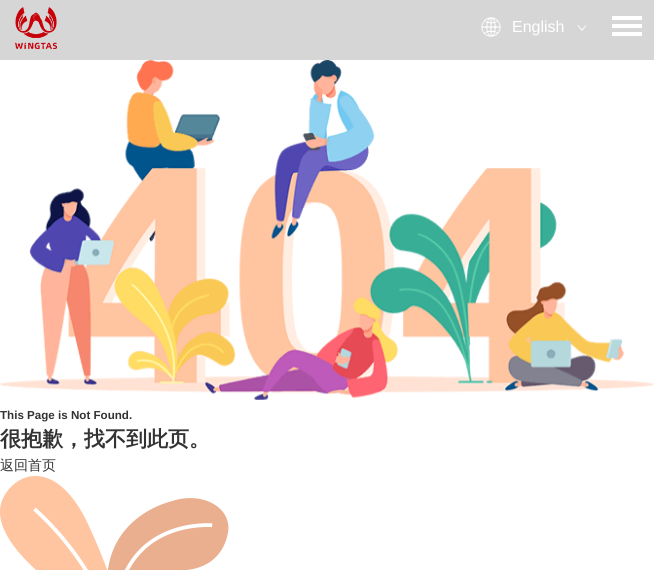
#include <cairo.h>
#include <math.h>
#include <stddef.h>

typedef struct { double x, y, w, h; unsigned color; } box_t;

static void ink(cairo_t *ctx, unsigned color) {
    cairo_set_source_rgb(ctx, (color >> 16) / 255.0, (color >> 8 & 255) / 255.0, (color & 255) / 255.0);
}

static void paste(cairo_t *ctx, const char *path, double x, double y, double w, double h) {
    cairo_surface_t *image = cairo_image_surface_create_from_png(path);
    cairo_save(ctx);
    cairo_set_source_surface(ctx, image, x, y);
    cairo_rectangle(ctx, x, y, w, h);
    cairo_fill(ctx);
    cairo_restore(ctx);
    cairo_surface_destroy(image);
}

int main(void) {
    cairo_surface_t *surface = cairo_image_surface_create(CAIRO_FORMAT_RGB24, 654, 570);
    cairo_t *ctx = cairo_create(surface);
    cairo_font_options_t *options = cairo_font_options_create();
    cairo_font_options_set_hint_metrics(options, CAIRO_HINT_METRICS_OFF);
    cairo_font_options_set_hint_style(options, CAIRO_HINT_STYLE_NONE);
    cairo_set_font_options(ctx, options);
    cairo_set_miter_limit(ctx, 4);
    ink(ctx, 0xFFFFFF);
    cairo_paint(ctx);
    ink(ctx, 0xD6D6D6);
    cairo_rectangle(ctx, 0, 0, 654, 60);
    cairo_fill(ctx);
    paste(ctx, "media/1.png", 15, 7, 42, 42);
    paste(ctx, "media/2.png", 481, 17, 20, 20);
    cairo_select_font_face(ctx, "Liberation Sans", CAIRO_FONT_SLANT_NORMAL, CAIRO_FONT_WEIGHT_NORMAL);
    cairo_set_font_size(ctx, 16);
    ink(ctx, 0xFFFFFF);
    cairo_move_to(ctx, 512, 32);
    cairo_show_text(ctx, "English");
    paste(ctx, "media/3.png", 577, 25, 10, 6);
    {
        static const box_t items[] = {
            {612, 16, 30, 4, 0xFFFFFF},
            {612, 24, 30, 4, 0xFFFFFF},
            {612, 32, 30, 4, 0xFFFFFF},
        };
        for (size_t i = 0; i < sizeof items / sizeof *items; i++) {
            ink(ctx, items[i].color);
            cairo_rectangle(ctx, items[i].x, items[i].y, items[i].w, items[i].h);
            cairo_fill(ctx);
        }
    }
    paste(ctx, "media/4.png", 0, 60, 654, 340);
    cairo_select_font_face(ctx, "Liberation Sans", CAIRO_FONT_SLANT_NORMAL, CAIRO_FONT_WEIGHT_BOLD);
    cairo_set_font_size(ctx, 11.6);
    ink(ctx, 0x333333);
    cairo_move_to(ctx, 0, 419);
    cairo_show_text(ctx, "This Page is Not Found.");
    cairo_select_font_face(ctx, "WenQuanYi Zen Hei", CAIRO_FONT_SLANT_NORMAL, CAIRO_FONT_WEIGHT_BOLD);
    cairo_set_font_size(ctx, 21);
    cairo_move_to(ctx, 0, 446);
    cairo_show_text(ctx, "很抱歉，找不到此页。");
    cairo_select_font_face(ctx, "WenQuanYi Zen Hei Medium", CAIRO_FONT_SLANT_NORMAL, CAIRO_FONT_WEIGHT_NORMAL);
    cairo_set_font_size(ctx, 14);
    cairo_move_to(ctx, 0, 470);
    cairo_show_text(ctx, "返回首页");
    paste(ctx, "media/5.png", 0, 476, 229, 94);
    cairo_surface_write_to_png(surface, "image.png");
    cairo_font_options_destroy(options);
    cairo_destroy(ctx);
    cairo_surface_destroy(surface);
    return 0;
}
